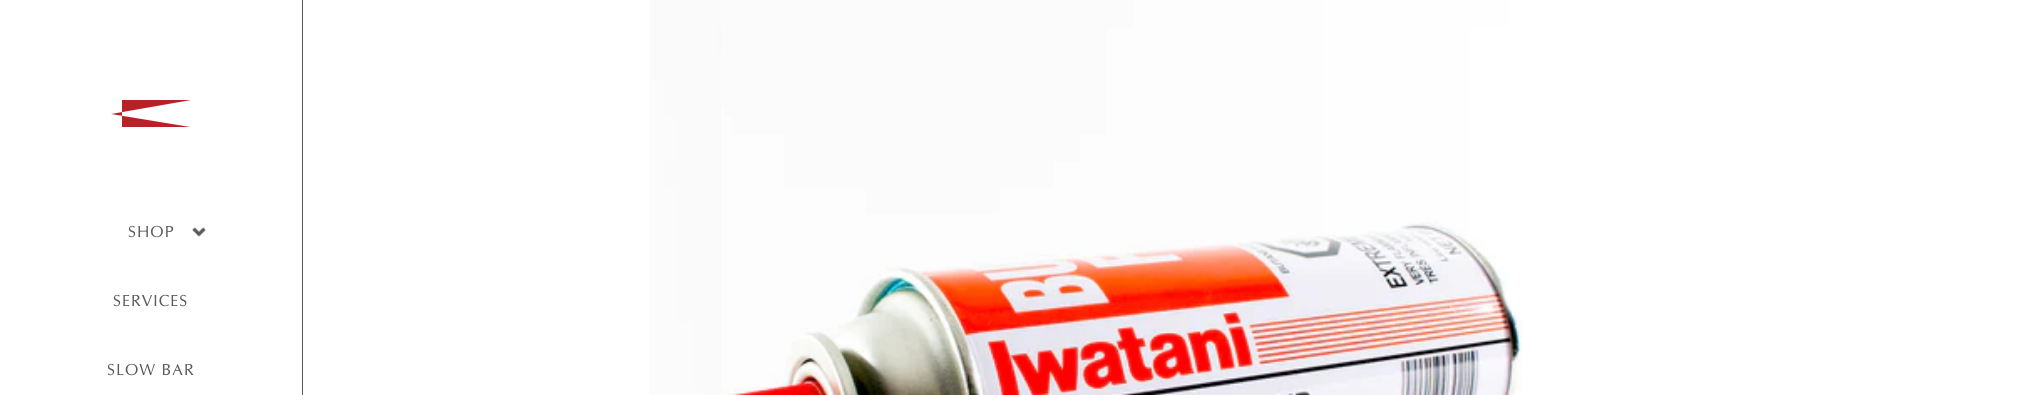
#include <cairo.h>
#include <math.h>
#include <stddef.h>


static void ink(cairo_t *ctx, unsigned color) {
    cairo_set_source_rgb(ctx, (color >> 16) / 255.0, (color >> 8 & 255) / 255.0, (color & 255) / 255.0);
}

static void write_spaced(cairo_t *ctx, double x, double y, const char *s, double letter, double word) {
    cairo_move_to(ctx, x, y);
    while (*s) {
        char ch[5] = {0};
        int n = 0;
        do ch[n++] = *s++; while ((*s & 0xC0) == 0x80);
        cairo_show_text(ctx, ch);
        cairo_rel_move_to(ctx, letter + word * (*ch == ' '), 0);
    }
}

static void paste(cairo_t *ctx, const char *path, double x, double y, double w, double h) {
    cairo_surface_t *image = cairo_image_surface_create_from_png(path);
    cairo_save(ctx);
    cairo_set_source_surface(ctx, image, x, y);
    cairo_rectangle(ctx, x, y, w, h);
    cairo_fill(ctx);
    cairo_restore(ctx);
    cairo_surface_destroy(image);
}

int main(void) {
    cairo_surface_t *surface = cairo_image_surface_create(CAIRO_FORMAT_RGB24, 2017, 395);
    cairo_t *ctx = cairo_create(surface);
    cairo_font_options_t *options = cairo_font_options_create();
    cairo_font_options_set_hint_metrics(options, CAIRO_HINT_METRICS_OFF);
    cairo_font_options_set_hint_style(options, CAIRO_HINT_STYLE_NONE);
    cairo_set_font_options(ctx, options);
    cairo_set_miter_limit(ctx, 4);
    ink(ctx, 0xFFFFFF);
    cairo_paint(ctx);
    ink(ctx, 0x58595B);
    cairo_rectangle(ctx, 302, 0, 1, 395);
    cairo_fill(ctx);
    ink(ctx, 0xB82126);
    cairo_new_path(ctx);
    cairo_move_to(ctx, 122, 127);
    cairo_line_to(ctx, 190, 127);
    cairo_line_to(ctx, 111, 114);
    cairo_line_to(ctx, 191, 100);
    cairo_line_to(ctx, 122, 100);
    cairo_fill(ctx);
    cairo_select_font_face(ctx, "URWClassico", CAIRO_FONT_SLANT_NORMAL, CAIRO_FONT_WEIGHT_NORMAL);
    cairo_set_font_size(ctx, 16);
    ink(ctx, 0x58595B);
    write_spaced(ctx, 128, 237, "SHOP", 1, 0);
    paste(ctx, "media/1.png", 192, 227, 14, 10);
    write_spaced(ctx, 113, 306, "SERVICES", 1, 0);
    write_spaced(ctx, 107, 375, "SLOW BAR", 1, 0);
    paste(ctx, "media/2.png", 650, 0, 71, 395);
    paste(ctx, "media/3.png", 721, 0, 802, 395);
    cairo_surface_write_to_png(surface, "image.png");
    cairo_font_options_destroy(options);
    cairo_destroy(ctx);
    cairo_surface_destroy(surface);
    return 0;
}
